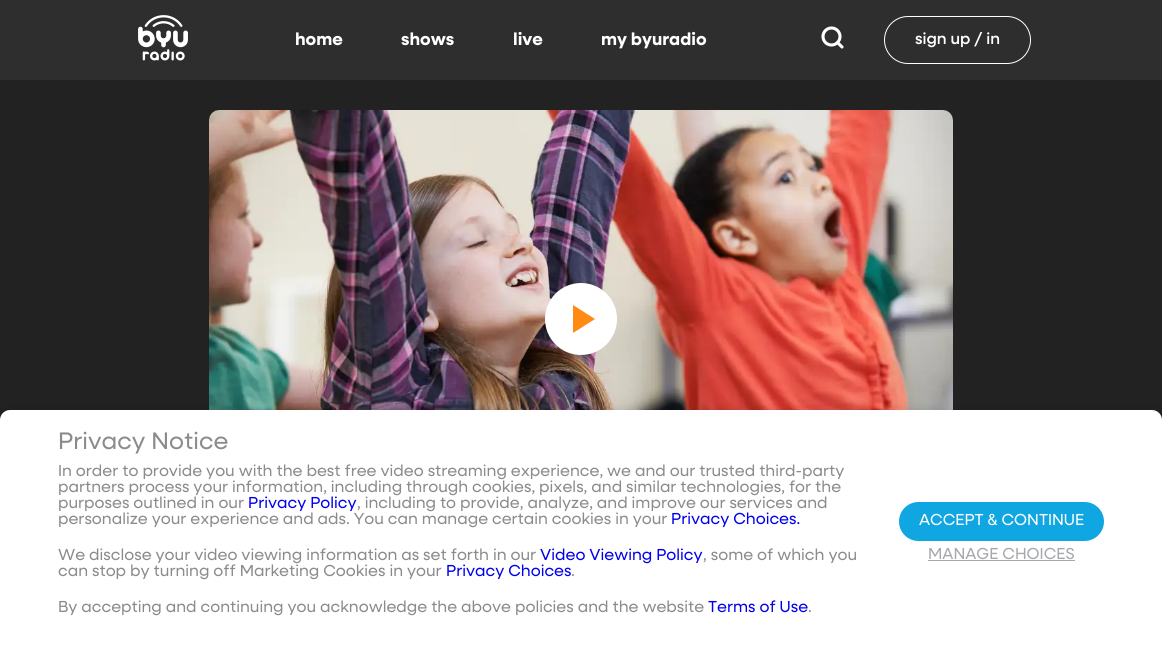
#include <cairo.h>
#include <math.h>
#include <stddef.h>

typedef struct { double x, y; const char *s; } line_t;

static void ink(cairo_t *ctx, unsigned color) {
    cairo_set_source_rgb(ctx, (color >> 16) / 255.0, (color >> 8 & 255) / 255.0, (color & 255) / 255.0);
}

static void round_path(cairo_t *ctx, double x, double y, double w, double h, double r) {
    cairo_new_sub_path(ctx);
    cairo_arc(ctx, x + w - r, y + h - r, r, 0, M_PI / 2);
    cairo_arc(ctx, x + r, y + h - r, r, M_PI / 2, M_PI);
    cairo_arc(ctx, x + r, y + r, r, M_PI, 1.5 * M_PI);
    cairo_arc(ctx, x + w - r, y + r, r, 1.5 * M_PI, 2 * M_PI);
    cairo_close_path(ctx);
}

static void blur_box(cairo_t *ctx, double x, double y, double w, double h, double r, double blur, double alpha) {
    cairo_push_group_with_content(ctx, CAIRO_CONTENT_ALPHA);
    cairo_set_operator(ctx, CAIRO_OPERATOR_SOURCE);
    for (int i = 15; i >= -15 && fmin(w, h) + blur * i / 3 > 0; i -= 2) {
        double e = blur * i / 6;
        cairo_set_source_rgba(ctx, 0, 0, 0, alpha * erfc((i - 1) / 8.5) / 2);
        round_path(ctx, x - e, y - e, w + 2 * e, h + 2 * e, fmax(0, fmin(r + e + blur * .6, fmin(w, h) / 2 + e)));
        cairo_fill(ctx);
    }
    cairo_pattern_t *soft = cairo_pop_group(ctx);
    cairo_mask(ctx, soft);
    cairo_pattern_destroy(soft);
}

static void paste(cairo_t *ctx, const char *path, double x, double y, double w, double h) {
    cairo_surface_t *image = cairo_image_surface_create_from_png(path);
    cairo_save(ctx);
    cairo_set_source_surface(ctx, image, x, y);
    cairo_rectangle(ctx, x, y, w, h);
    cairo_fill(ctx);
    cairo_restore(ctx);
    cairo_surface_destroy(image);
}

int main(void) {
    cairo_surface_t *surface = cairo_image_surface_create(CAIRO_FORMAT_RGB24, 1162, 656);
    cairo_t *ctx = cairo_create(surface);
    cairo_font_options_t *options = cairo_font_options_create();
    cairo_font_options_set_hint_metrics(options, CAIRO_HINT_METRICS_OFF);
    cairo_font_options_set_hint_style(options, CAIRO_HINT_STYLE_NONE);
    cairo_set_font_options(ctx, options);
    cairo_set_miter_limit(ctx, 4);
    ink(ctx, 0x222222);
    cairo_paint(ctx);
    ink(ctx, 0x2E2E2E);
    cairo_rectangle(ctx, 0, 0, 1162, 80);
    cairo_fill(ctx);
    paste(ctx, "media/1.png", 138, 15, 50, 46);
    cairo_select_font_face(ctx, "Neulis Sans", CAIRO_FONT_SLANT_NORMAL, CAIRO_FONT_WEIGHT_BOLD);
    cairo_set_font_size(ctx, 17.5);
    ink(ctx, 0xFFFFFF);
    {
        static const line_t items[] = {
            {295, 45, "home"},
            {401, 45, "shows"},
            {513, 45, "live"},
            {601, 45, "my byuradio"},
        };
        for (size_t i = 0; i < sizeof items / sizeof *items; i++) {
            cairo_move_to(ctx, items[i].x, items[i].y);
            cairo_show_text(ctx, items[i].s);
        }
    }
    cairo_new_path(ctx);
    cairo_arc(ctx, 831.5, 36.5, 8.5, 0, 2 * M_PI);
    cairo_set_line_width(ctx, 3.1);
    cairo_stroke(ctx);
    cairo_new_path(ctx);
    cairo_move_to(ctx, 842, 47);
    cairo_line_to(ctx, 837.5, 42.5);
    cairo_set_line_cap(ctx, CAIRO_LINE_CAP_ROUND);
    cairo_set_line_join(ctx, CAIRO_LINE_JOIN_ROUND);
    cairo_stroke(ctx);
    round_path(ctx, 884.5, 16.5, 146, 47, 23.5);
    cairo_set_line_width(ctx, 1);
    cairo_set_line_cap(ctx, CAIRO_LINE_CAP_BUTT);
    cairo_set_line_join(ctx, CAIRO_LINE_JOIN_MITER);
    cairo_stroke(ctx);
    cairo_select_font_face(ctx, "Neulis Sans Medium", CAIRO_FONT_SLANT_NORMAL, CAIRO_FONT_WEIGHT_NORMAL);
    cairo_set_font_size(ctx, 16);
    cairo_move_to(ctx, 915, 44);
    cairo_show_text(ctx, "sign up / in");
    paste(ctx, "media/2.png", 209, 110, 744, 300);
    cairo_arc(ctx, 581, 319, 35, 0, 2 * M_PI);
    cairo_fill_preserve(ctx);
    cairo_set_line_width(ctx, 2);
    cairo_stroke(ctx);
    ink(ctx, 0xFF8B14);
    cairo_new_path(ctx);
    cairo_move_to(ctx, 573, 305);
    cairo_line_to(ctx, 573, 333);
    cairo_line_to(ctx, 595, 319);
    cairo_close_path(ctx);
    cairo_fill(ctx);
    ink(ctx, 0x000000);
    blur_box(ctx, 0, 408, 1162, 246, 10, 5, 0.1);
    ink(ctx, 0xFFFFFF);
    cairo_new_path(ctx);
    cairo_move_to(ctx, 10, 410);
    cairo_line_to(ctx, 1152, 410);
    cairo_curve_to(ctx, 1157.5, 410, 1162, 414.5, 1162, 420);
    cairo_line_to(ctx, 1162, 656);
    cairo_line_to(ctx, 0, 656);
    cairo_line_to(ctx, 0, 420);
    cairo_curve_to(ctx, 0, 414.5, 4.5, 410, 10, 410);
    cairo_close_path(ctx);
    cairo_fill(ctx);
    cairo_select_font_face(ctx, "Neulis Sans", CAIRO_FONT_SLANT_NORMAL, CAIRO_FONT_WEIGHT_NORMAL);
    cairo_set_font_size(ctx, 24);
    ink(ctx, 0x898B8D);
    cairo_move_to(ctx, 58, 449);
    cairo_show_text(ctx, "Privacy Notice");
    cairo_set_font_size(ctx, 16);
    {
        static const line_t items[] = {
            {58, 476, "In order to provide you with the best free video streaming experience, we and our trusted third-party"},
            {58, 492, "partners process your information, including through cookies, pixels, and similar technologies, for the"},
            {58, 508, "purposes outlined in our"},
        };
        for (size_t i = 0; i < sizeof items / sizeof *items; i++) {
            cairo_move_to(ctx, items[i].x, items[i].y);
            cairo_show_text(ctx, items[i].s);
        }
    }
    ink(ctx, 0x0000EE);
    cairo_move_to(ctx, 248, 508);
    cairo_show_text(ctx, "Privacy Policy");
    ink(ctx, 0x898B8D);
    cairo_move_to(ctx, 357, 508);
    cairo_show_text(ctx, ", including to provide, analyze, and improve our services and");
    cairo_move_to(ctx, 58, 524);
    cairo_show_text(ctx, "personalize your experience and ads. You can manage certain cookies in your");
    ink(ctx, 0x0000EE);
    cairo_move_to(ctx, 671, 524);
    cairo_show_text(ctx, "Privacy Choices.");
    ink(ctx, 0x898B8D);
    cairo_move_to(ctx, 58, 560);
    cairo_show_text(ctx, "We disclose your video viewing information as set forth in our");
    ink(ctx, 0x0000EE);
    cairo_move_to(ctx, 540, 560);
    cairo_show_text(ctx, "Video Viewing Policy");
    ink(ctx, 0x898B8D);
    cairo_move_to(ctx, 703, 560);
    cairo_show_text(ctx, ", some of which you");
    cairo_move_to(ctx, 58, 576);
    cairo_show_text(ctx, "can stop by turning off Marketing Cookies in your");
    ink(ctx, 0x0000EE);
    cairo_move_to(ctx, 446, 576);
    cairo_show_text(ctx, "Privacy Choices");
    ink(ctx, 0x898B8D);
    cairo_move_to(ctx, 571, 576);
    cairo_show_text(ctx, ".");
    cairo_move_to(ctx, 58, 612);
    cairo_show_text(ctx, "By accepting and continuing you acknowledge the above policies and the website");
    ink(ctx, 0x0000EE);
    cairo_move_to(ctx, 708, 612);
    cairo_show_text(ctx, "Terms of Use");
    ink(ctx, 0x898B8D);
    cairo_move_to(ctx, 808, 612);
    cairo_show_text(ctx, ".");
    ink(ctx, 0x0FA6E2);
    round_path(ctx, 899, 502, 205, 39, 19.5);
    cairo_fill(ctx);
    ink(ctx, 0xFFFFFF);
    cairo_move_to(ctx, 919, 525);
    cairo_show_text(ctx, "ACCEPT & CONTINUE");
    ink(ctx, 0xA5A8AC);
    cairo_move_to(ctx, 928, 559);
    cairo_show_text(ctx, "MANAGE CHOICES");
    cairo_rectangle(ctx, 928, 560, 147, 1);
    cairo_fill(ctx);
    cairo_surface_write_to_png(surface, "image.png");
    cairo_font_options_destroy(options);
    cairo_destroy(ctx);
    cairo_surface_destroy(surface);
    return 0;
}
